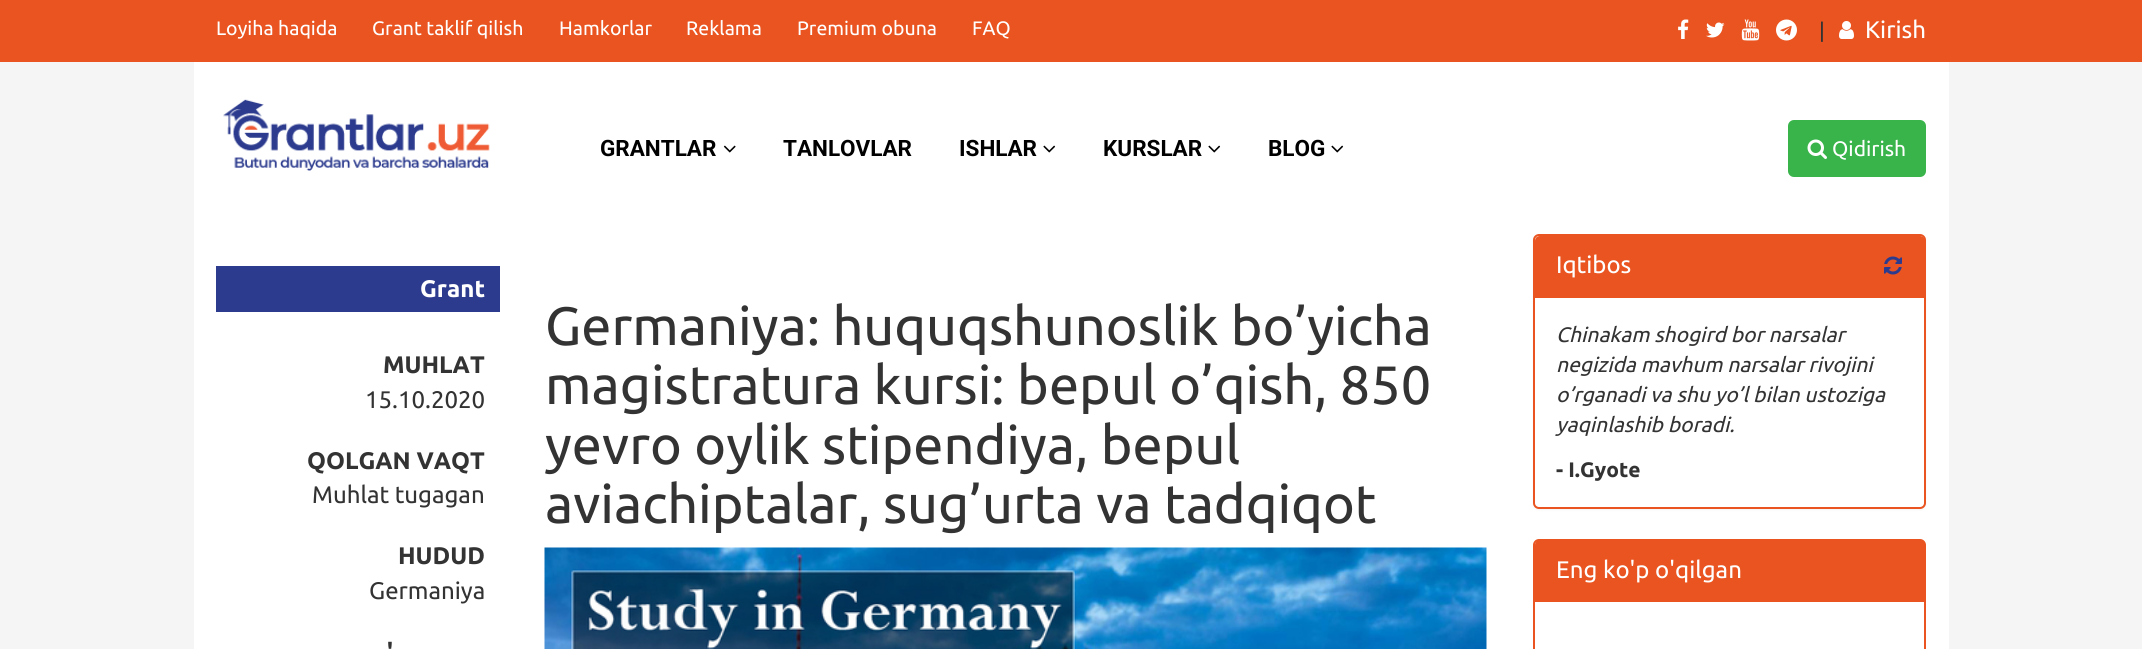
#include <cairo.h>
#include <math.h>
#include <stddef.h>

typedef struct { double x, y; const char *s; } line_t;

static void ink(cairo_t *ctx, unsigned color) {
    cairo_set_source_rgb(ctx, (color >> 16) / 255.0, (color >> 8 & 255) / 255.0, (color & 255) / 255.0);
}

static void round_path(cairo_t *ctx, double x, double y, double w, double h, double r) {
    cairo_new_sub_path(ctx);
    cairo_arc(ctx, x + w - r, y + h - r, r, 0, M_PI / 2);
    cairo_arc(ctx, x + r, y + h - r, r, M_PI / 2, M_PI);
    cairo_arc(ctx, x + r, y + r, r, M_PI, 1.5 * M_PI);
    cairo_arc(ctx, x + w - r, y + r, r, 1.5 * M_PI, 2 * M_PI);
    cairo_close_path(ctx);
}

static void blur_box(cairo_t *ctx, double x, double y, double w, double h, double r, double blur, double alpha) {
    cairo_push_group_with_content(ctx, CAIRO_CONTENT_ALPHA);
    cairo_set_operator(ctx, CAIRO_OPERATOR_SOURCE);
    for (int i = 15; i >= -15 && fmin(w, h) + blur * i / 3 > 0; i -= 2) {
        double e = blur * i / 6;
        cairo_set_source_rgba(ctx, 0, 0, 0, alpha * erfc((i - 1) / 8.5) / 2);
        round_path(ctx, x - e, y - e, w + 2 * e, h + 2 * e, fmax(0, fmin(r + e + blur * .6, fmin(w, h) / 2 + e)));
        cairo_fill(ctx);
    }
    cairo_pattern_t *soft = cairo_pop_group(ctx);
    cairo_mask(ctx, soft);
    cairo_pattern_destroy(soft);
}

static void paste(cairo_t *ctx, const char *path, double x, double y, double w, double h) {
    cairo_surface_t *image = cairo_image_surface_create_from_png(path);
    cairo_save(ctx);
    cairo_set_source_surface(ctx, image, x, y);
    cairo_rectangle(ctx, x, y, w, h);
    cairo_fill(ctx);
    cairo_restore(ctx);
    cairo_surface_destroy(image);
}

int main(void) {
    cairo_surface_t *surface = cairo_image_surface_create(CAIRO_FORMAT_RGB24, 2142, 649);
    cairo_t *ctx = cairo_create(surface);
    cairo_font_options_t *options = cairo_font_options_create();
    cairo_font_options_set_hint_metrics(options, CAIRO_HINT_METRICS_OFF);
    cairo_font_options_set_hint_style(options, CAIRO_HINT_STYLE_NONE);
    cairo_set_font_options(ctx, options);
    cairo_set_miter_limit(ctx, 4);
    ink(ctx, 0xF5F5F5);
    cairo_paint(ctx);
    ink(ctx, 0xE95420);
    cairo_rectangle(ctx, 0, 0, 2142, 62);
    cairo_fill(ctx);
    cairo_select_font_face(ctx, "Ubuntu", CAIRO_FONT_SLANT_NORMAL, CAIRO_FONT_WEIGHT_NORMAL);
    cairo_set_font_size(ctx, 19.5);
    ink(ctx, 0xFFFFFF);
    {
        static const line_t items[] = {
            {216, 35, "Loyiha haqida"},
            {372, 35, "Grant taklif qilish"},
            {559, 35, "Hamkorlar"},
            {686, 35, "Reklama"},
            {797, 35, "Premium obuna"},
            {972, 35, "FAQ"},
        };
        for (size_t i = 0; i < sizeof items / sizeof *items; i++) {
            cairo_move_to(ctx, items[i].x, items[i].y);
            cairo_show_text(ctx, items[i].s);
        }
    }
    paste(ctx, "media/1.png", 1678, 19, 11, 20);
    paste(ctx, "media/2.png", 1706, 22, 19, 16);
    paste(ctx, "media/3.png", 1741, 19, 19, 22);
    paste(ctx, "media/4.png", 1776, 19, 21, 22);
    cairo_set_font_size(ctx, 21);
    ink(ctx, 0x333333);
    cairo_move_to(ctx, 1819, 38);
    cairo_show_text(ctx, "|");
    paste(ctx, "media/5.png", 1839, 21, 15, 18);
    cairo_set_font_size(ctx, 24);
    ink(ctx, 0xFFFFFF);
    cairo_move_to(ctx, 1865, 38);
    cairo_show_text(ctx, "Kirish");
    cairo_rectangle(ctx, 194, 62, 1755, 587);
    cairo_fill(ctx);
    paste(ctx, "media/6.png", 223, 99, 267, 72);
    cairo_select_font_face(ctx, "Roboto", CAIRO_FONT_SLANT_NORMAL, CAIRO_FONT_WEIGHT_BOLD);
    cairo_set_font_size(ctx, 22.5);
    ink(ctx, 0x000000);
    cairo_move_to(ctx, 600, 156);
    cairo_show_text(ctx, "GRANTLAR");
    paste(ctx, "media/7.png", 723, 145, 13, 8);
    cairo_move_to(ctx, 783, 156);
    cairo_show_text(ctx, "TANLOVLAR");
    cairo_move_to(ctx, 959, 156);
    cairo_show_text(ctx, "ISHLAR");
    paste(ctx, "media/8.png", 1043, 145, 13, 8);
    cairo_move_to(ctx, 1103, 156);
    cairo_show_text(ctx, "KURSLAR");
    paste(ctx, "media/8.png", 1208, 145, 13, 8);
    cairo_move_to(ctx, 1268, 156);
    cairo_show_text(ctx, "BLOG");
    paste(ctx, "media/8.png", 1331, 145, 13, 8);
    ink(ctx, 0x38B44A);
    round_path(ctx, 1789, 121, 136, 55, 5);
    cairo_fill_preserve(ctx);
    cairo_stroke(ctx);
    paste(ctx, "media/9.png", 1807, 139, 20, 20);
    cairo_select_font_face(ctx, "Ubuntu", CAIRO_FONT_SLANT_NORMAL, CAIRO_FONT_WEIGHT_NORMAL);
    cairo_set_font_size(ctx, 21);
    ink(ctx, 0xFFFFFF);
    cairo_move_to(ctx, 1832, 156);
    cairo_show_text(ctx, "Qidirish");
    ink(ctx, 0x2C3B8E);
    cairo_rectangle(ctx, 216, 266, 284, 46);
    cairo_fill(ctx);
    cairo_select_font_face(ctx, "Ubuntu", CAIRO_FONT_SLANT_NORMAL, CAIRO_FONT_WEIGHT_BOLD);
    cairo_set_font_size(ctx, 24);
    ink(ctx, 0xFFFFFF);
    cairo_move_to(ctx, 420, 297);
    cairo_show_text(ctx, "Grant");
    ink(ctx, 0x333333);
    cairo_move_to(ctx, 383, 373);
    cairo_show_text(ctx, "MUHLAT");
    cairo_select_font_face(ctx, "Ubuntu", CAIRO_FONT_SLANT_NORMAL, CAIRO_FONT_WEIGHT_NORMAL);
    cairo_move_to(ctx, 365, 408);
    cairo_show_text(ctx, "15.10.2020");
    cairo_select_font_face(ctx, "Ubuntu", CAIRO_FONT_SLANT_NORMAL, CAIRO_FONT_WEIGHT_BOLD);
    cairo_move_to(ctx, 307, 469);
    cairo_show_text(ctx, "QOLGAN VAQT");
    cairo_select_font_face(ctx, "Ubuntu", CAIRO_FONT_SLANT_NORMAL, CAIRO_FONT_WEIGHT_NORMAL);
    cairo_move_to(ctx, 312, 503);
    cairo_show_text(ctx, "Muhlat tugagan");
    cairo_select_font_face(ctx, "Ubuntu", CAIRO_FONT_SLANT_NORMAL, CAIRO_FONT_WEIGHT_BOLD);
    cairo_move_to(ctx, 398, 564);
    cairo_show_text(ctx, "HUDUD");
    cairo_select_font_face(ctx, "Ubuntu", CAIRO_FONT_SLANT_NORMAL, CAIRO_FONT_WEIGHT_NORMAL);
    cairo_move_to(ctx, 369, 599);
    cairo_show_text(ctx, "Germaniya");
    cairo_select_font_face(ctx, "Ubuntu", CAIRO_FONT_SLANT_NORMAL, CAIRO_FONT_WEIGHT_BOLD);
    cairo_move_to(ctx, 387, 660);
    cairo_show_text(ctx, "'");
    cairo_select_font_face(ctx, "Ubuntu", CAIRO_FONT_SLANT_NORMAL, CAIRO_FONT_WEIGHT_NORMAL);
    cairo_set_font_size(ctx, 54);
    {
        static const line_t items[] = {
            {545, 345, "Germaniya: huquqshunoslik bo’yicha"},
            {545, 404, "magistratura kursi: bepul o’qish, 850"},
            {545, 464, "yevro oylik stipendiya, bepul"},
            {545, 523, "aviachiptalar, sug’urta va tadqiqot"},
        };
        for (size_t i = 0; i < sizeof items / sizeof *items; i++) {
            cairo_move_to(ctx, items[i].x, items[i].y);
            cairo_show_text(ctx, items[i].s);
        }
    }
    paste(ctx, "media/10.png", 544, 547, 943, 102);
    ink(ctx, 0x000000);
    blur_box(ctx, 1533, 236, 393, 274, 6, 1, 0.05);
    ink(ctx, 0xFFFFFF);
    round_path(ctx, 1534, 235, 391, 273, 5);
    cairo_fill_preserve(ctx);
    ink(ctx, 0xE95420);
    cairo_stroke(ctx);
    cairo_new_path(ctx);
    cairo_move_to(ctx, 1540, 236);
    cairo_line_to(ctx, 1920, 236);
    cairo_curve_to(ctx, 1923, 236, 1925, 238, 1925, 241);
    cairo_line_to(ctx, 1925, 297);
    cairo_line_to(ctx, 1535, 297);
    cairo_line_to(ctx, 1535, 241);
    cairo_curve_to(ctx, 1535, 238, 1537, 236, 1540, 236);
    cairo_close_path(ctx);
    cairo_fill(ctx);
    cairo_rectangle(ctx, 1535, 297, 390, 1);
    cairo_fill(ctx);
    cairo_set_font_size(ctx, 24);
    ink(ctx, 0xFFFFFF);
    cairo_move_to(ctx, 1556, 273);
    cairo_show_text(ctx, "Iqtibos");
    paste(ctx, "media/11.png", 1884, 256, 18, 19);
    cairo_select_font_face(ctx, "Ubuntu", CAIRO_FONT_SLANT_ITALIC, CAIRO_FONT_WEIGHT_NORMAL);
    cairo_set_font_size(ctx, 21);
    ink(ctx, 0x333333);
    {
        static const line_t items[] = {
            {1556, 342, "Chinakam shogird bor narsalar"},
            {1556, 372, "negizida mavhum narsalar rivojini"},
            {1556, 402, "o’rganadi va shu yo’l bilan ustoziga"},
            {1556, 432, "yaqinlashib boradi."},
        };
        for (size_t i = 0; i < sizeof items / sizeof *items; i++) {
            cairo_move_to(ctx, items[i].x, items[i].y);
            cairo_show_text(ctx, items[i].s);
        }
    }
    cairo_select_font_face(ctx, "Ubuntu", CAIRO_FONT_SLANT_NORMAL, CAIRO_FONT_WEIGHT_BOLD);
    cairo_move_to(ctx, 1556, 477);
    cairo_show_text(ctx, "- I.Gyote");
    round_path(ctx, 1534, 540, 391, 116, 5);
    ink(ctx, 0xE95420);
    cairo_stroke(ctx);
    cairo_new_path(ctx);
    cairo_move_to(ctx, 1540, 540);
    cairo_line_to(ctx, 1920, 540);
    cairo_curve_to(ctx, 1923, 540, 1925, 542, 1925, 545);
    cairo_line_to(ctx, 1925, 602);
    cairo_line_to(ctx, 1535, 602);
    cairo_line_to(ctx, 1535, 545);
    cairo_curve_to(ctx, 1535, 542, 1537, 540, 1540, 540);
    cairo_close_path(ctx);
    cairo_fill(ctx);
    cairo_select_font_face(ctx, "Ubuntu", CAIRO_FONT_SLANT_NORMAL, CAIRO_FONT_WEIGHT_NORMAL);
    cairo_set_font_size(ctx, 24);
    ink(ctx, 0xFFFFFF);
    cairo_move_to(ctx, 1556, 578);
    cairo_show_text(ctx, "Eng ko'p o'qilgan");
    cairo_surface_write_to_png(surface, "image.png");
    cairo_font_options_destroy(options);
    cairo_destroy(ctx);
    cairo_surface_destroy(surface);
    return 0;
}
